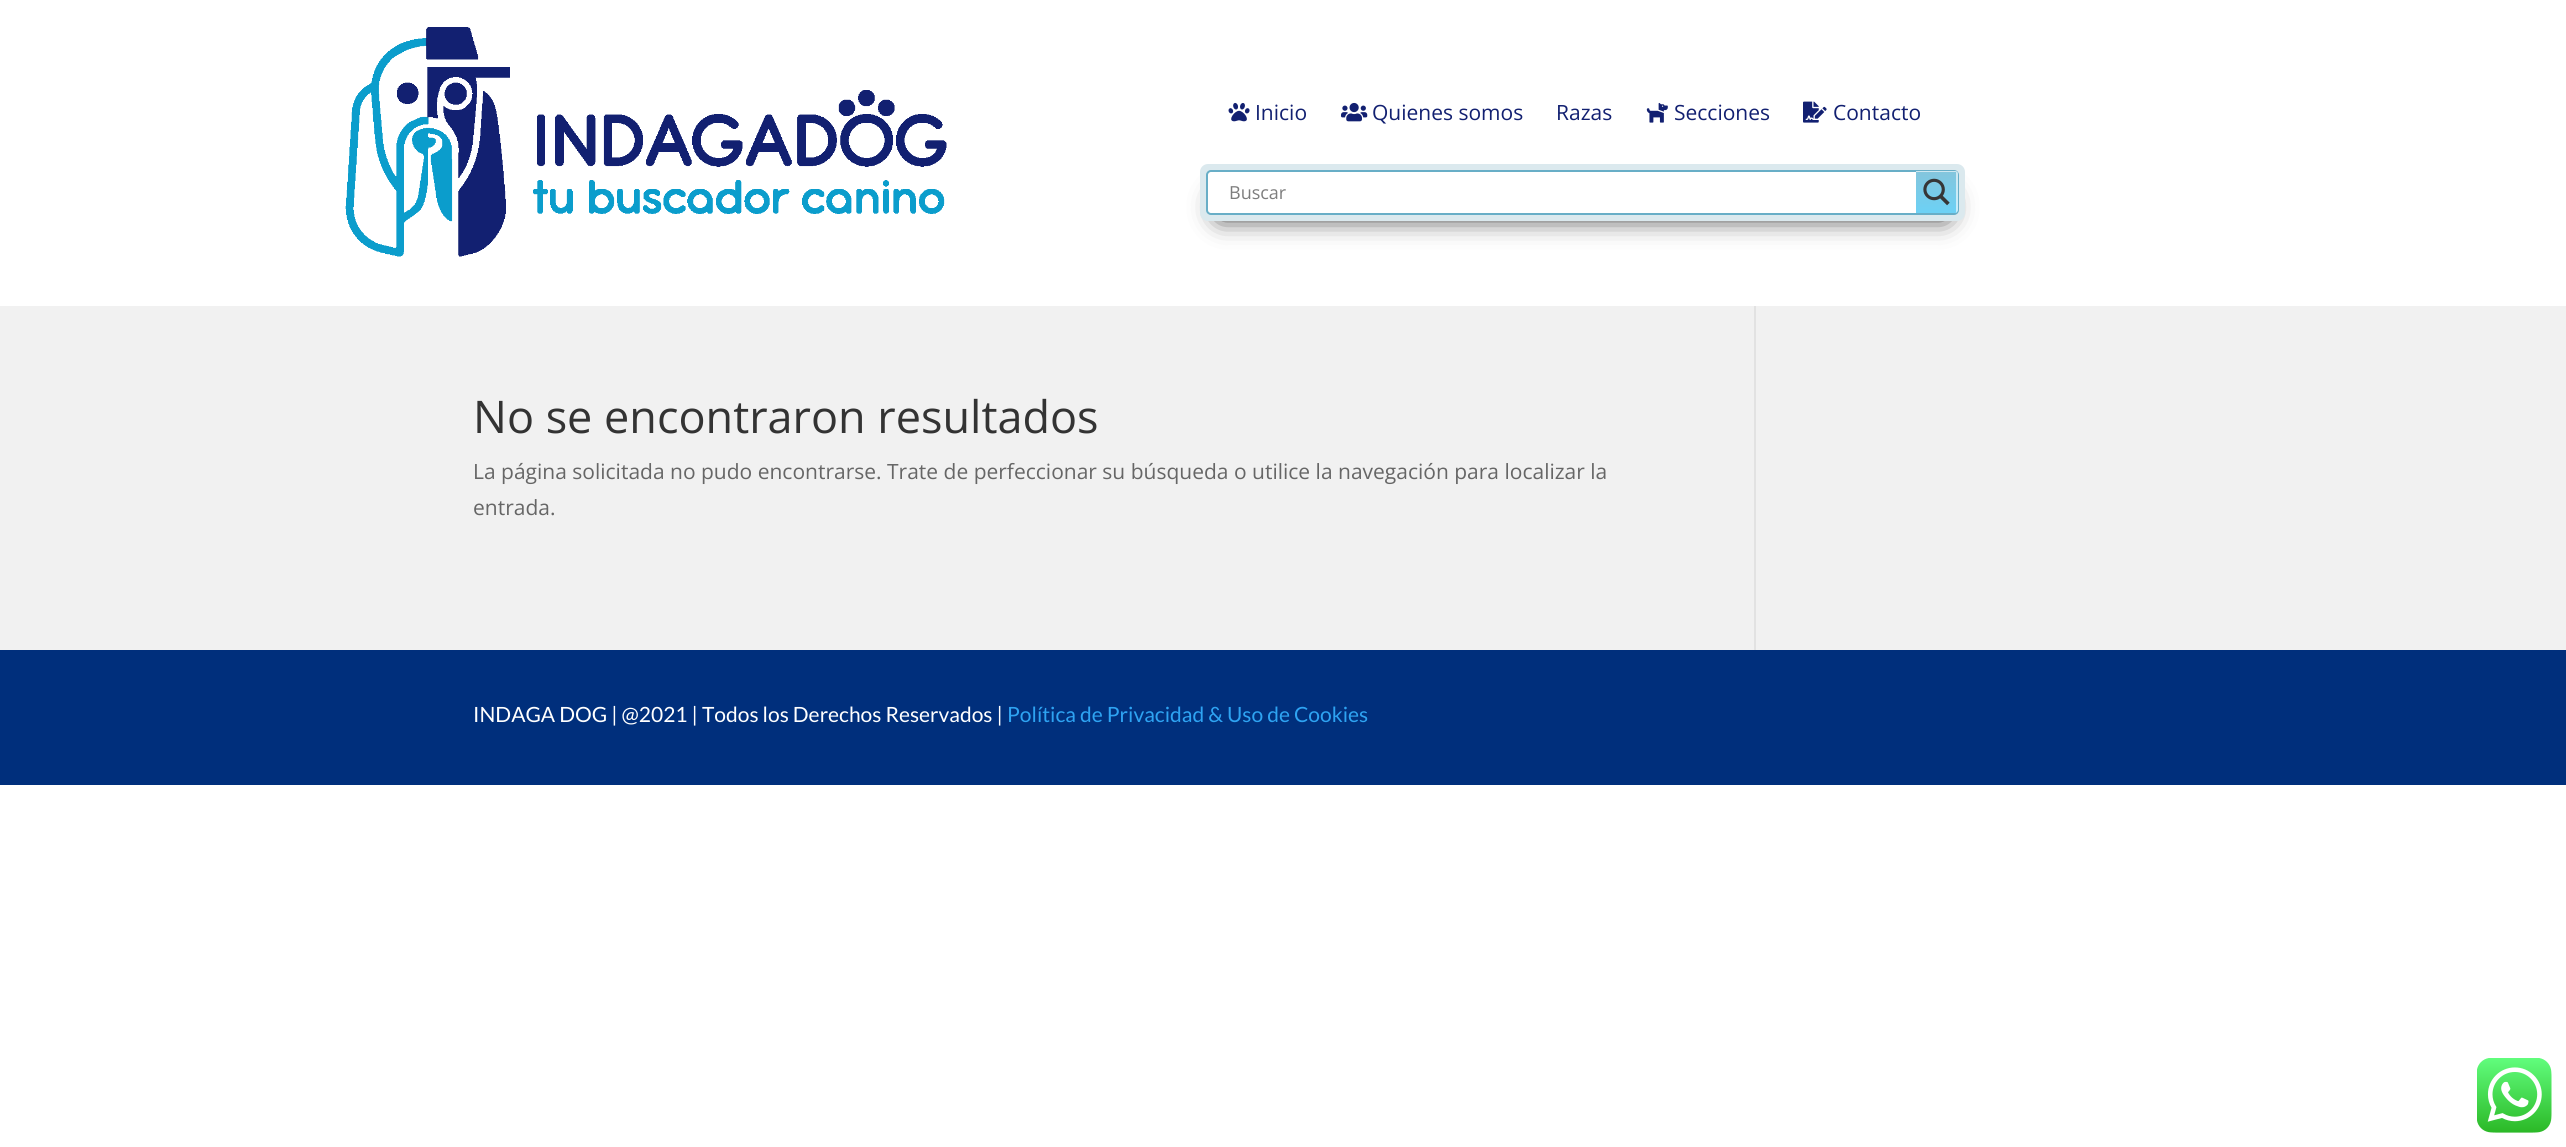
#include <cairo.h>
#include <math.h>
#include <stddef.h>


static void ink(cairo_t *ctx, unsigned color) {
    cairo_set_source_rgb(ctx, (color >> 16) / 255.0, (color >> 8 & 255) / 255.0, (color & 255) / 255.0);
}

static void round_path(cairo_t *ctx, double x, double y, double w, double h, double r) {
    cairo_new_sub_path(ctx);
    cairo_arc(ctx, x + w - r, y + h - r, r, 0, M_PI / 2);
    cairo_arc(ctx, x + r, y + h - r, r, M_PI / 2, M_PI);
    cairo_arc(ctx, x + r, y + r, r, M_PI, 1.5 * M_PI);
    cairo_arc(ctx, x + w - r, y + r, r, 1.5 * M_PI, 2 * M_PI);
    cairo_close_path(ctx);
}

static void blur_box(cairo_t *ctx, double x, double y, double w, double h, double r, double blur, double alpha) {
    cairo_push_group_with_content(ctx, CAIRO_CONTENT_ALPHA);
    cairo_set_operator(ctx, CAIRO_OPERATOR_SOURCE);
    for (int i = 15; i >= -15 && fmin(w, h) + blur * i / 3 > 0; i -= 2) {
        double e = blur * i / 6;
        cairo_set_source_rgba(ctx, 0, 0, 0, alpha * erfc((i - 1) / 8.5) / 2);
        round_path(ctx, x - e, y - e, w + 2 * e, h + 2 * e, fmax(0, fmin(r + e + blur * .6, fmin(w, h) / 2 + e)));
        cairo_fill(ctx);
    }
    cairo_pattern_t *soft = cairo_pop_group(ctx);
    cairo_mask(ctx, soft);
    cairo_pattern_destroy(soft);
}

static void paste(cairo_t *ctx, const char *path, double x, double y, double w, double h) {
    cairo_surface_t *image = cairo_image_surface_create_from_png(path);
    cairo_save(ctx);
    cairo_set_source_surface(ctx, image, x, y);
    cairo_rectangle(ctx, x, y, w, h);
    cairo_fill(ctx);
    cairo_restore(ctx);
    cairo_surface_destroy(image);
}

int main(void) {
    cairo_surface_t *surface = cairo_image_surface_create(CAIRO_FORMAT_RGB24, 2566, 1147);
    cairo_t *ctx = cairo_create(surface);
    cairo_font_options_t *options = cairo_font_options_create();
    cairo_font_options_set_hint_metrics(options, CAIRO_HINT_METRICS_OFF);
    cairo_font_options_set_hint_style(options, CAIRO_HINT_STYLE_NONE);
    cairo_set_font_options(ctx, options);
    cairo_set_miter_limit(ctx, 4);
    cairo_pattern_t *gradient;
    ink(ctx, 0xFFFFFF);
    cairo_paint(ctx);
    paste(ctx, "media/1.png", 345, 27, 602, 230);
    paste(ctx, "media/2.png", 1228, 102, 22, 20);
    cairo_select_font_face(ctx, "Open Sans", CAIRO_FONT_SLANT_NORMAL, CAIRO_FONT_WEIGHT_NORMAL);
    cairo_set_font_size(ctx, 21);
    ink(ctx, 0x122071);
    cairo_move_to(ctx, 1255, 120);
    cairo_show_text(ctx, "Inicio");
    paste(ctx, "media/3.png", 1341, 102, 27, 20);
    cairo_move_to(ctx, 1372, 120);
    cairo_show_text(ctx, "Quienes somos");
    cairo_move_to(ctx, 1556, 120);
    cairo_show_text(ctx, "Razas");
    paste(ctx, "media/4.png", 1646, 102, 22, 21);
    cairo_move_to(ctx, 1674, 120);
    cairo_show_text(ctx, "Secciones");
    paste(ctx, "media/5.png", 1803, 101, 24, 22);
    cairo_move_to(ctx, 1833, 120);
    cairo_show_text(ctx, "Contacto");
    ink(ctx, 0x000000);
    blur_box(ctx, 1220, 198, 726, 18, 0, 13.5, 1);
    ink(ctx, 0xDBE9EE);
    round_path(ctx, 1200, 164, 765, 57, 8);
    cairo_fill(ctx);
    ink(ctx, 0xFFFFFF);
    round_path(ctx, 1207, 171, 751, 43, 4);
    cairo_fill_preserve(ctx);
    ink(ctx, 0x68AEC7);
    cairo_stroke(ctx);
    cairo_set_font_size(ctx, 18);
    ink(ctx, 0x7D7D7D);
    cairo_move_to(ctx, 1229, 199);
    cairo_show_text(ctx, "Buscar");
    gradient = cairo_pattern_create_linear(1937, 171, 1937, 213);
    cairo_pattern_add_color_stop_rgba(gradient, 0, 0.518, 0.773, 0.863, 1);
    cairo_pattern_add_color_stop_rgba(gradient, 1, 0.424, 0.82, 0.961, 1);
    cairo_set_source(ctx, gradient);
    cairo_pattern_destroy(gradient);
    cairo_new_path(ctx);
    cairo_move_to(ctx, 1916, 171);
    cairo_line_to(ctx, 1955, 171);
    cairo_curve_to(ctx, 1956.5, 171, 1958, 172.5, 1958, 174);
    cairo_line_to(ctx, 1958, 210);
    cairo_curve_to(ctx, 1958, 211.5, 1956.5, 213, 1955, 213);
    cairo_line_to(ctx, 1916, 213);
    cairo_close_path(ctx);
    cairo_fill(ctx);
    cairo_save(ctx);
    cairo_rectangle(ctx, 1916, 171, 42, 42);
    cairo_clip(ctx);
    cairo_set_source_rgba(ctx, 1, 1, 1, 0.61);
    cairo_new_path(ctx);
    cairo_move_to(ctx, 1914, 172);
    cairo_line_to(ctx, 1914, 213);
    cairo_line_to(ctx, 1767, 213);
    cairo_line_to(ctx, 1767, 171);
    cairo_line_to(ctx, 1955, 171);
    cairo_curve_to(ctx, 1957, 171, 1958, 172, 1958, 174);
    cairo_line_to(ctx, 1958, 210);
    cairo_curve_to(ctx, 1958, 211, 1957, 212, 1956, 213);
    cairo_line_to(ctx, 1956, 172);
    cairo_close_path(ctx);
    cairo_fill(ctx);
    cairo_restore(ctx);
    paste(ctx, "media/6.png", 1923, 178, 27, 28);
    ink(ctx, 0xF1F1F1);
    cairo_rectangle(ctx, 0, 306, 2566, 344);
    cairo_fill(ctx);
    cairo_set_font_size(ctx, 45);
    ink(ctx, 0x333333);
    cairo_move_to(ctx, 473, 433);
    cairo_show_text(ctx, "No se encontraron resultados");
    cairo_set_font_size(ctx, 21);
    ink(ctx, 0x666666);
    cairo_move_to(ctx, 473, 479);
    cairo_show_text(ctx, "La página solicitada no pudo encontrarse. Trate de perfeccionar su búsqueda o utilice la navegación para localizar la");
    cairo_move_to(ctx, 473, 515);
    cairo_show_text(ctx, "entrada.");
    ink(ctx, 0xE2E2E2);
    cairo_rectangle(ctx, 1754, 306, 2, 344);
    cairo_fill(ctx);
    ink(ctx, 0x002F7C);
    cairo_rectangle(ctx, 0, 650, 2566, 135);
    cairo_fill(ctx);
    cairo_select_font_face(ctx, "Lato", CAIRO_FONT_SLANT_NORMAL, CAIRO_FONT_WEIGHT_NORMAL);
    ink(ctx, 0xFFFFFF);
    cairo_move_to(ctx, 473, 722);
    cairo_show_text(ctx, "INDAGA DOG | @2021 | Todos los Derechos Reservados |");
    ink(ctx, 0x2EA3F2);
    cairo_move_to(ctx, 1007, 722);
    cairo_show_text(ctx, "Política de Privacidad & Uso de Cookies");
    paste(ctx, "media/7.png", 2477, 1058, 75, 75);
    cairo_surface_write_to_png(surface, "image.png");
    cairo_font_options_destroy(options);
    cairo_destroy(ctx);
    cairo_surface_destroy(surface);
    return 0;
}
